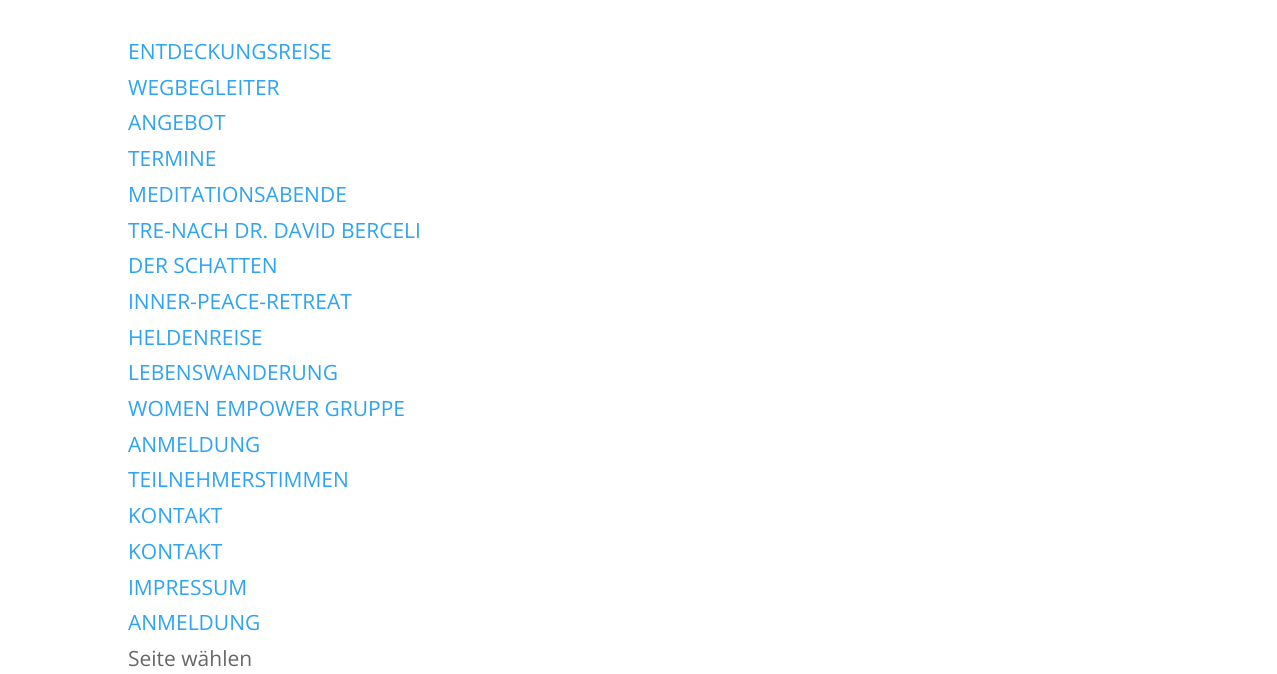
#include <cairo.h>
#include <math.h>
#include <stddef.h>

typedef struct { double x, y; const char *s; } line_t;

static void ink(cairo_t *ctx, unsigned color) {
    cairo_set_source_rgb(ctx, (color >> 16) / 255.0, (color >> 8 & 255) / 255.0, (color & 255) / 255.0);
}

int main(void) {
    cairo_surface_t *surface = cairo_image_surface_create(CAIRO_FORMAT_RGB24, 1277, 674);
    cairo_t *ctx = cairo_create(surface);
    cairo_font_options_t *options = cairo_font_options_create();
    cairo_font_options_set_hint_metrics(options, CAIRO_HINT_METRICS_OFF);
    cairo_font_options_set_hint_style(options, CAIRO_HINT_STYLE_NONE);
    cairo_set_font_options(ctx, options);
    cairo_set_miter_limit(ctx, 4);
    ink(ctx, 0xFFFFFF);
    cairo_paint(ctx);
    cairo_select_font_face(ctx, "Open Sans", CAIRO_FONT_SLANT_NORMAL, CAIRO_FONT_WEIGHT_NORMAL);
    cairo_set_font_size(ctx, 21);
    ink(ctx, 0x2EA3F2);
    {
        static const line_t items[] = {
            {128, 59, "ENTDECKUNGSREISE"},
            {128, 95, "WEGBEGLEITER"},
            {128, 130, "ANGEBOT"},
            {128, 166, "TERMINE"},
            {128, 202, "MEDITATIONSABENDE"},
            {128, 238, "TRE-NACH DR. DAVID BERCELI"},
            {128, 273, "DER SCHATTEN"},
            {128, 309, "INNER-PEACE-RETREAT"},
            {128, 345, "HELDENREISE"},
            {128, 380, "LEBENSWANDERUNG"},
            {128, 416, "WOMEN EMPOWER GRUPPE"},
            {128, 452, "ANMELDUNG"},
            {128, 487, "TEILNEHMERSTIMMEN"},
            {128, 523, "KONTAKT"},
            {128, 559, "KONTAKT"},
            {128, 595, "IMPRESSUM"},
            {128, 630, "ANMELDUNG"},
        };
        for (size_t i = 0; i < sizeof items / sizeof *items; i++) {
            cairo_move_to(ctx, items[i].x, items[i].y);
            cairo_show_text(ctx, items[i].s);
        }
    }
    ink(ctx, 0x666666);
    cairo_move_to(ctx, 128, 666);
    cairo_show_text(ctx, "Seite wählen");
    cairo_surface_write_to_png(surface, "image.png");
    cairo_font_options_destroy(options);
    cairo_destroy(ctx);
    cairo_surface_destroy(surface);
    return 0;
}
